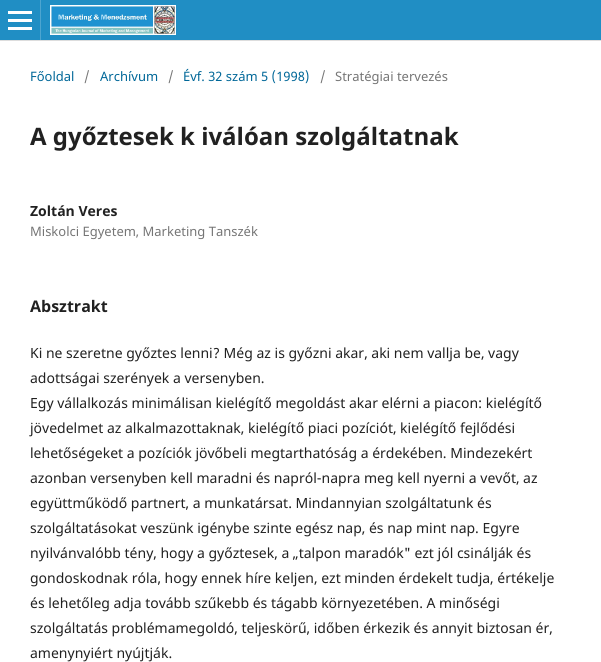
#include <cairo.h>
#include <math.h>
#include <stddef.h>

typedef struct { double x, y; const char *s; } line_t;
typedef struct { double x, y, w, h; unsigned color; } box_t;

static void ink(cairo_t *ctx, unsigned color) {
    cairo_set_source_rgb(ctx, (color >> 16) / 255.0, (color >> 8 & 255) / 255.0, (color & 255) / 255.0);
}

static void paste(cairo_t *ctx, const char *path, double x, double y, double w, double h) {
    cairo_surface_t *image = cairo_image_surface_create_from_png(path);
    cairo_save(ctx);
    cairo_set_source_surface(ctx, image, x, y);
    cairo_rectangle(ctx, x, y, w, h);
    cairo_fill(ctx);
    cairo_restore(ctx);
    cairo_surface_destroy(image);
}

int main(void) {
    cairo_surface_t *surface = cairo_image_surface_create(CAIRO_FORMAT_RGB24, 601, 662);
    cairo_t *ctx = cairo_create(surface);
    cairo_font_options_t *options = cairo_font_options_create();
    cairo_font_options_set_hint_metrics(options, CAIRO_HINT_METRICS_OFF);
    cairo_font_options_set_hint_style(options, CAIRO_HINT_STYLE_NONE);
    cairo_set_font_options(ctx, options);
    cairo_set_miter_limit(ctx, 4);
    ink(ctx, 0xFFFFFF);
    cairo_paint(ctx);
    {
        static const box_t items[] = {
            {0, 0, 601, 40, 0x208EC4},
            {0, 40, 601, 1, 0xDDDDDD},
            {40, 0, 1, 40, 0x4DA5D0},
            {8, 27, 24, 3, 0xFFFFFF},
            {8, 11, 24, 3, 0xFFFFFF},
            {8, 19, 24, 3, 0xFFFFFF},
        };
        for (size_t i = 0; i < sizeof items / sizeof *items; i++) {
            ink(ctx, items[i].color);
            cairo_rectangle(ctx, items[i].x, items[i].y, items[i].w, items[i].h);
            cairo_fill(ctx);
        }
    }
    paste(ctx, "media/1.png", 50, 5, 126, 30);
    cairo_select_font_face(ctx, "Noto Sans", CAIRO_FONT_SLANT_NORMAL, CAIRO_FONT_WEIGHT_NORMAL);
    cairo_set_font_size(ctx, 13);
    ink(ctx, 0x006798);
    cairo_move_to(ctx, 30, 81);
    cairo_show_text(ctx, "Főoldal");
    ink(ctx, 0x757575);
    cairo_move_to(ctx, 84, 81);
    cairo_show_text(ctx, "/");
    ink(ctx, 0x006798);
    cairo_move_to(ctx, 100, 81);
    cairo_show_text(ctx, "Archívum");
    ink(ctx, 0x757575);
    cairo_move_to(ctx, 168, 81);
    cairo_show_text(ctx, "/");
    ink(ctx, 0x006798);
    cairo_move_to(ctx, 183, 81);
    cairo_show_text(ctx, "Évf. 32 szám 5 (1998)");
    ink(ctx, 0x757575);
    cairo_move_to(ctx, 320, 81);
    cairo_show_text(ctx, "/");
    cairo_move_to(ctx, 335, 81);
    cairo_show_text(ctx, "Stratégiai tervezés");
    cairo_select_font_face(ctx, "Noto Sans", CAIRO_FONT_SLANT_NORMAL, CAIRO_FONT_WEIGHT_BOLD);
    cairo_set_font_size(ctx, 24);
    ink(ctx, 0x212121);
    cairo_move_to(ctx, 30, 145);
    cairo_show_text(ctx, "A győztesek k iválóan szolgáltatnak");
    cairo_set_font_size(ctx, 14);
    cairo_move_to(ctx, 30, 216);
    cairo_show_text(ctx, "Zoltán Veres");
    cairo_select_font_face(ctx, "Noto Sans", CAIRO_FONT_SLANT_NORMAL, CAIRO_FONT_WEIGHT_NORMAL);
    cairo_set_font_size(ctx, 13);
    ink(ctx, 0x757575);
    cairo_move_to(ctx, 30, 236);
    cairo_show_text(ctx, "Miskolci Egyetem, Marketing Tanszék");
    cairo_select_font_face(ctx, "Noto Sans", CAIRO_FONT_SLANT_NORMAL, CAIRO_FONT_WEIGHT_BOLD);
    cairo_set_font_size(ctx, 16);
    ink(ctx, 0x212121);
    cairo_move_to(ctx, 30, 312);
    cairo_show_text(ctx, "Absztrakt");
    cairo_select_font_face(ctx, "Noto Sans", CAIRO_FONT_SLANT_NORMAL, CAIRO_FONT_WEIGHT_NORMAL);
    cairo_set_font_size(ctx, 14);
    {
        static const line_t items[] = {
            {30, 358, "Ki ne szeretne győztes lenni? Még az is győzni akar, aki nem vallja be, vagy"},
            {30, 383, "adottságai szerények a versenyben."},
            {30, 408, "Egy vállalkozás minimálisan kielégítő megoldást akar elérni a piacon: kielégítő"},
            {30, 433, "jövedelmet az alkalmazottaknak, kielégítő piaci pozíciót, kielégítő fejlődési"},
            {30, 458, "lehetőségeket a pozíciók jövőbeli megtarthatóság a érdekében. Mindezekért"},
            {30, 483, "azonban versenyben kell maradni és napról-napra meg kell nyerni a vevőt, az"},
            {30, 508, "együttműködő partnert, a munkatársat. Mindannyian szolgáltatunk és"},
            {30, 533, "szolgáltatásokat veszünk igénybe szinte egész nap, és nap mint nap. Egyre"},
            {30, 558, "nyilvánvalóbb tény, hogy a győztesek, a „talpon maradók\" ezt jól csinálják és"},
            {30, 583, "gondoskodnak róla, hogy ennek híre keljen, ezt minden érdekelt tudja, értékelje"},
            {30, 608, "és lehetőleg adja tovább szűkebb és tágabb környezetében. A minőségi"},
            {30, 633, "szolgáltatás problémamegoldó, teljeskörű, időben érkezik és annyit biztosan ér,"},
            {30, 658, "amenynyiért nyújtják."},
        };
        for (size_t i = 0; i < sizeof items / sizeof *items; i++) {
            cairo_move_to(ctx, items[i].x, items[i].y);
            cairo_show_text(ctx, items[i].s);
        }
    }
    cairo_surface_write_to_png(surface, "image.png");
    cairo_font_options_destroy(options);
    cairo_destroy(ctx);
    cairo_surface_destroy(surface);
    return 0;
}
